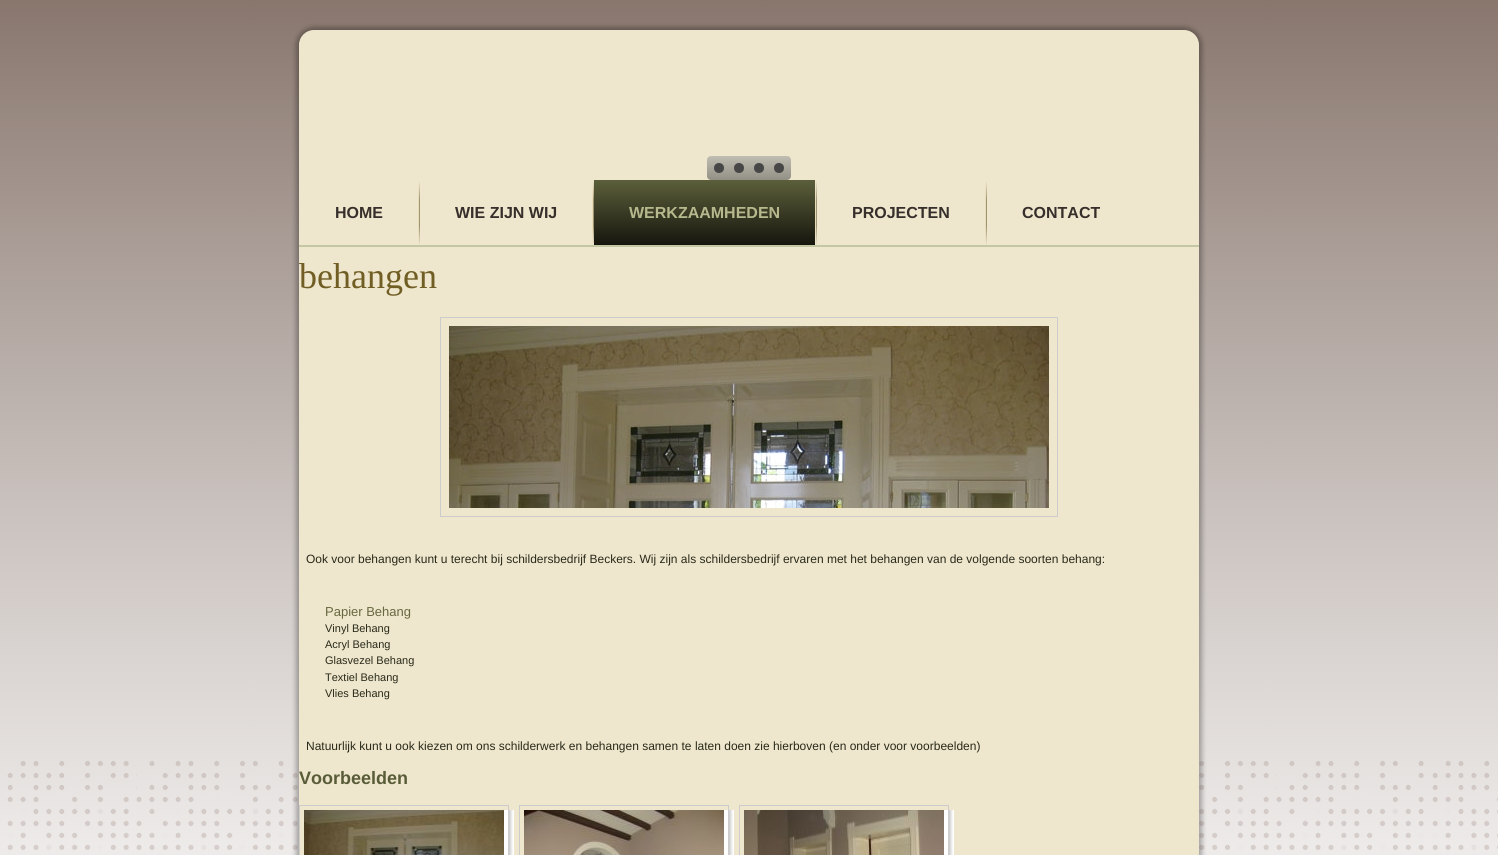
#include <cairo.h>
#include <math.h>
#include <stddef.h>

typedef struct { double x, y; const char *s; } line_t;

static void ink(cairo_t *ctx, unsigned color) {
    cairo_set_source_rgb(ctx, (color >> 16) / 255.0, (color >> 8 & 255) / 255.0, (color & 255) / 255.0);
}

static void round_path(cairo_t *ctx, double x, double y, double w, double h, double r) {
    cairo_new_sub_path(ctx);
    cairo_arc(ctx, x + w - r, y + h - r, r, 0, M_PI / 2);
    cairo_arc(ctx, x + r, y + h - r, r, M_PI / 2, M_PI);
    cairo_arc(ctx, x + r, y + r, r, M_PI, 1.5 * M_PI);
    cairo_arc(ctx, x + w - r, y + r, r, 1.5 * M_PI, 2 * M_PI);
    cairo_close_path(ctx);
}

static void blur_box(cairo_t *ctx, double x, double y, double w, double h, double r, double blur, double alpha) {
    cairo_push_group_with_content(ctx, CAIRO_CONTENT_ALPHA);
    cairo_set_operator(ctx, CAIRO_OPERATOR_SOURCE);
    for (int i = 15; i >= -15 && fmin(w, h) + blur * i / 3 > 0; i -= 2) {
        double e = blur * i / 6;
        cairo_set_source_rgba(ctx, 0, 0, 0, alpha * erfc((i - 1) / 8.5) / 2);
        round_path(ctx, x - e, y - e, w + 2 * e, h + 2 * e, fmax(0, fmin(r + e + blur * .6, fmin(w, h) / 2 + e)));
        cairo_fill(ctx);
    }
    cairo_pattern_t *soft = cairo_pop_group(ctx);
    cairo_mask(ctx, soft);
    cairo_pattern_destroy(soft);
}

static void paste(cairo_t *ctx, const char *path, double x, double y, double w, double h) {
    cairo_surface_t *image = cairo_image_surface_create_from_png(path);
    cairo_save(ctx);
    cairo_set_source_surface(ctx, image, x, y);
    cairo_rectangle(ctx, x, y, w, h);
    cairo_fill(ctx);
    cairo_restore(ctx);
    cairo_surface_destroy(image);
}

int main(void) {
    cairo_surface_t *surface = cairo_image_surface_create(CAIRO_FORMAT_RGB24, 1498, 855);
    cairo_t *ctx = cairo_create(surface);
    cairo_font_options_t *options = cairo_font_options_create();
    cairo_font_options_set_hint_metrics(options, CAIRO_HINT_METRICS_OFF);
    cairo_font_options_set_hint_style(options, CAIRO_HINT_STYLE_NONE);
    cairo_set_font_options(ctx, options);
    cairo_set_miter_limit(ctx, 4);
    cairo_pattern_t *gradient;
    ink(ctx, 0xFFFFFF);
    cairo_paint(ctx);
    paste(ctx, "media/1.png", 0, 0, 1498, 855);
    ink(ctx, 0x000000);
    blur_box(ctx, 296, 27, 906, 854, 18, 2.5, 0.3);
    ink(ctx, 0xEFE7CD);
    round_path(ctx, 299, 30, 900, 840, 15);
    cairo_fill(ctx);
    gradient = cairo_pattern_create_linear(749, 156, 749, 180);
    cairo_pattern_add_color_stop_rgba(gradient, 0, 0.753, 0.741, 0.702, 1);
    cairo_pattern_add_color_stop_rgba(gradient, 0.43, 0.675, 0.663, 0.624, 1);
    cairo_pattern_add_color_stop_rgba(gradient, 1, 0.573, 0.561, 0.518, 1);
    cairo_set_source(ctx, gradient);
    cairo_pattern_destroy(gradient);
    round_path(ctx, 707, 156, 84, 24, 4);
    cairo_fill(ctx);
    ink(ctx, 0x474747);
    cairo_arc(ctx, 719, 168, 5, 0, 2 * M_PI);
    cairo_fill(ctx);
    cairo_arc(ctx, 739, 168, 5, 0, 2 * M_PI);
    cairo_fill(ctx);
    cairo_arc(ctx, 759, 168, 5, 0, 2 * M_PI);
    cairo_fill(ctx);
    cairo_arc(ctx, 779, 168, 5, 0, 2 * M_PI);
    cairo_fill(ctx);
    ink(ctx, 0xC4C7A3);
    cairo_rectangle(ctx, 299, 245, 900, 2);
    cairo_fill(ctx);
    cairo_select_font_face(ctx, "Liberation Sans", CAIRO_FONT_SLANT_NORMAL, CAIRO_FONT_WEIGHT_BOLD);
    cairo_set_font_size(ctx, 16);
    ink(ctx, 0x362F2B);
    cairo_move_to(ctx, 335, 218);
    cairo_show_text(ctx, "HOME");
    paste(ctx, "media/2.png", 418, 181, 2, 64);
    cairo_move_to(ctx, 455, 218);
    cairo_show_text(ctx, "WIE ZIJN WIJ");
    paste(ctx, "media/2.png", 592, 181, 2, 64);
    gradient = cairo_pattern_create_linear(705, 180, 705, 245);
    cairo_pattern_add_color_stop_rgba(gradient, 0, 0.361, 0.373, 0.227, 1);
    cairo_pattern_add_color_stop_rgba(gradient, 1, 0.086, 0.086, 0.055, 1);
    cairo_set_source(ctx, gradient);
    cairo_pattern_destroy(gradient);
    cairo_rectangle(ctx, 594, 180, 221, 65);
    cairo_fill(ctx);
    ink(ctx, 0xB6B98D);
    cairo_move_to(ctx, 629, 218);
    cairo_show_text(ctx, "WERKZAAMHEDEN");
    paste(ctx, "media/2.png", 815, 181, 2, 64);
    ink(ctx, 0x362F2B);
    cairo_move_to(ctx, 852, 218);
    cairo_show_text(ctx, "PROJECTEN");
    paste(ctx, "media/2.png", 985, 181, 2, 64);
    cairo_move_to(ctx, 1022, 218);
    cairo_show_text(ctx, "CONTACT");
    cairo_select_font_face(ctx, "Liberation Serif", CAIRO_FONT_SLANT_NORMAL, CAIRO_FONT_WEIGHT_NORMAL);
    cairo_set_font_size(ctx, 36);
    ink(ctx, 0x705E24);
    cairo_move_to(ctx, 299, 288);
    cairo_show_text(ctx, "behangen");
    cairo_rectangle(ctx, 440.5, 317.5, 617, 199);
    ink(ctx, 0xCCCCCC);
    cairo_set_line_width(ctx, 1);
    cairo_stroke(ctx);
    paste(ctx, "media/3.png", 449, 326, 600, 182);
    cairo_select_font_face(ctx, "Liberation Sans", CAIRO_FONT_SLANT_NORMAL, CAIRO_FONT_WEIGHT_NORMAL);
    cairo_set_font_size(ctx, 12);
    ink(ctx, 0x282919);
    cairo_move_to(ctx, 306, 563);
    cairo_show_text(ctx, "Ook voor behangen kunt u terecht bij schildersbedrijf Beckers. Wij zijn als schildersbedrijf ervaren met het behangen van de volgende soorten behang:");
    cairo_set_font_size(ctx, 13);
    ink(ctx, 0x666840);
    cairo_move_to(ctx, 325, 616);
    cairo_show_text(ctx, "Papier Behang");
    cairo_set_font_size(ctx, 11);
    ink(ctx, 0x282919);
    {
        static const line_t items[] = {
            {325, 632, "Vinyl Behang"},
            {325, 648, "Acryl Behang"},
            {325, 664, "Glasvezel Behang"},
            {325, 681, "Textiel Behang"},
            {325, 697, "Vlies Behang"},
        };
        for (size_t i = 0; i < sizeof items / sizeof *items; i++) {
            cairo_move_to(ctx, items[i].x, items[i].y);
            cairo_show_text(ctx, items[i].s);
        }
    }
    cairo_set_font_size(ctx, 12);
    cairo_move_to(ctx, 306, 750);
    cairo_show_text(ctx, "Natuurlijk kunt u ook kiezen om ons schilderwerk en behangen samen te laten doen zie hierboven (en onder voor voorbeelden)");
    cairo_select_font_face(ctx, "Liberation Sans", CAIRO_FONT_SLANT_NORMAL, CAIRO_FONT_WEIGHT_BOLD);
    cairo_set_font_size(ctx, 18);
    ink(ctx, 0x595C38);
    cairo_move_to(ctx, 299, 784);
    cairo_show_text(ctx, "Voorbeelden");
    ink(ctx, 0xFFFFFF);
    cairo_rectangle(ctx, 504, 810, 10, 45);
    cairo_fill(ctx);
    paste(ctx, "media/4.png", 509, 810, 4, 45);
    cairo_rectangle(ctx, 299.5, 805.5, 209, 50);
    ink(ctx, 0xCCCCCC);
    cairo_stroke(ctx);
    paste(ctx, "media/5.png", 304, 810, 200, 45);
    ink(ctx, 0xFFFFFF);
    cairo_rectangle(ctx, 724, 810, 10, 45);
    cairo_fill(ctx);
    paste(ctx, "media/4.png", 729, 810, 4, 45);
    cairo_rectangle(ctx, 519.5, 805.5, 209, 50);
    ink(ctx, 0xCCCCCC);
    cairo_stroke(ctx);
    paste(ctx, "media/6.png", 524, 810, 200, 45);
    ink(ctx, 0xFFFFFF);
    cairo_rectangle(ctx, 944, 810, 10, 45);
    cairo_fill(ctx);
    paste(ctx, "media/4.png", 949, 810, 4, 45);
    cairo_rectangle(ctx, 739.5, 805.5, 209, 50);
    ink(ctx, 0xCCCCCC);
    cairo_stroke(ctx);
    paste(ctx, "media/7.png", 744, 810, 200, 45);
    cairo_surface_write_to_png(surface, "image.png");
    cairo_font_options_destroy(options);
    cairo_destroy(ctx);
    cairo_surface_destroy(surface);
    return 0;
}
